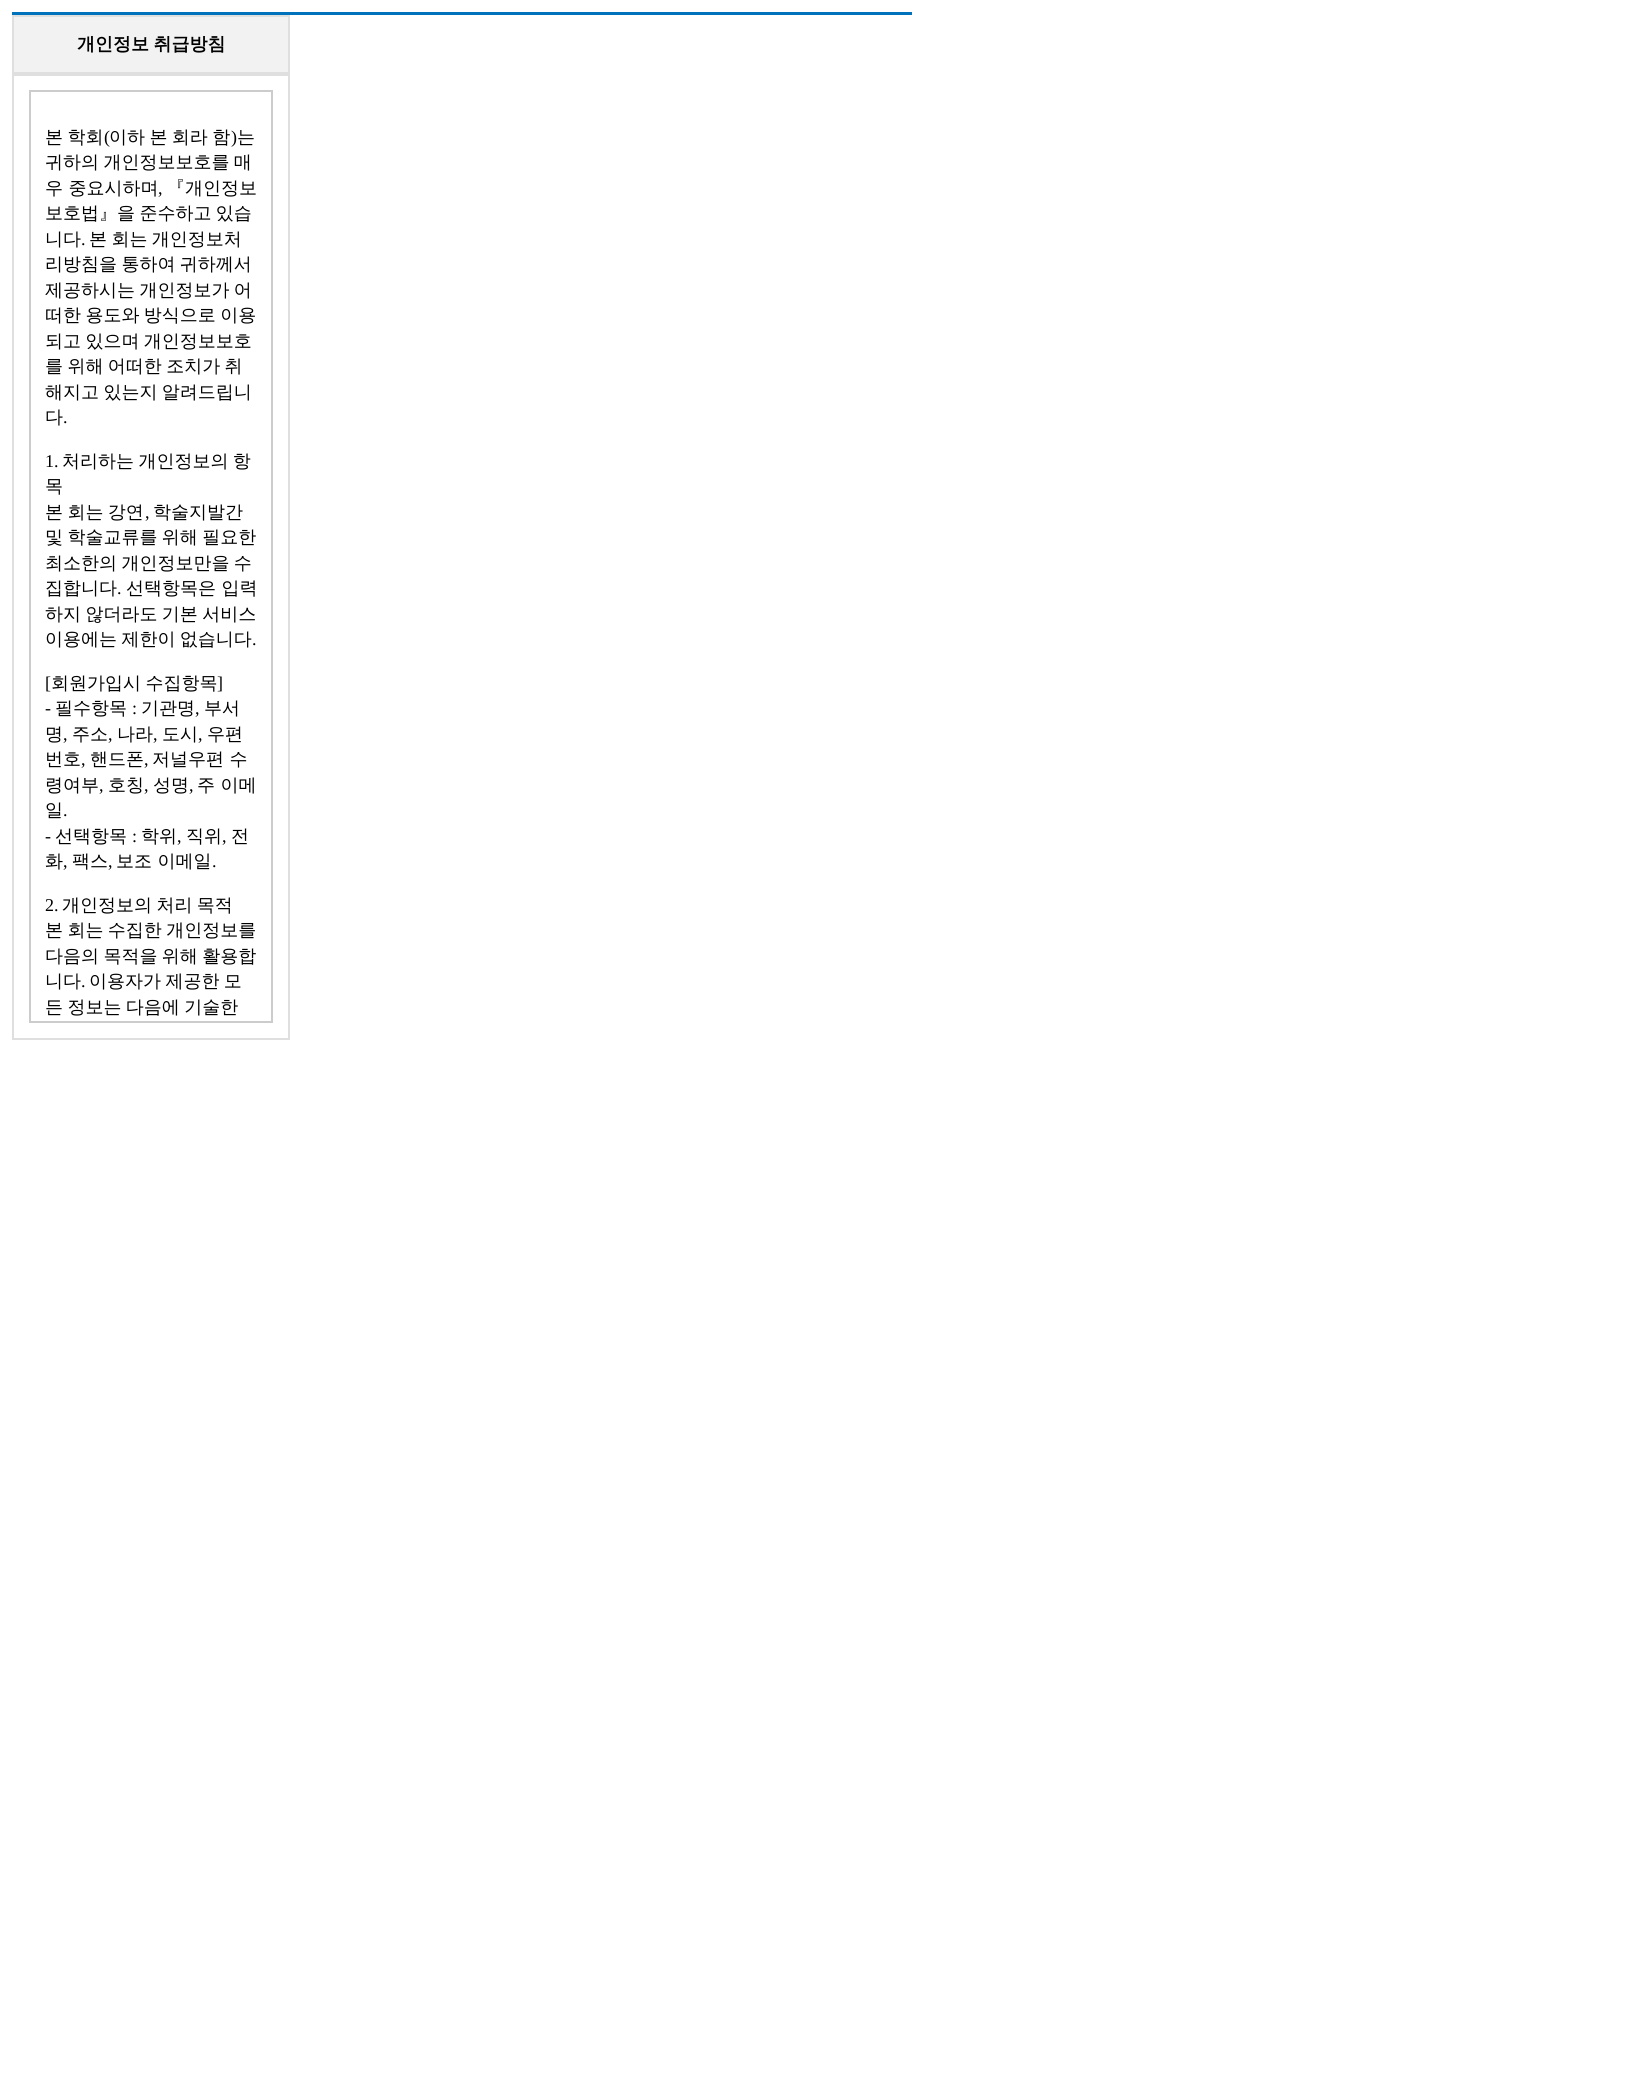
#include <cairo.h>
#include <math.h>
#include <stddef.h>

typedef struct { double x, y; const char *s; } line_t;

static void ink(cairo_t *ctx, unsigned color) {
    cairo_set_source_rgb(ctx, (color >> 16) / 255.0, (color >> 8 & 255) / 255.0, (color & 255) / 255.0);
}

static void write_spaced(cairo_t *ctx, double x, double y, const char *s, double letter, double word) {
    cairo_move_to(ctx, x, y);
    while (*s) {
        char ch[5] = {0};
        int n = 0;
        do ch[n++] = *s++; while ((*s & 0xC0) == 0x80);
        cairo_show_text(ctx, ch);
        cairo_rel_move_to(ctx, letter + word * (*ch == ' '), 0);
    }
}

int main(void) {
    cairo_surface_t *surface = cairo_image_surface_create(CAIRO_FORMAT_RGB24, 1639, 2080);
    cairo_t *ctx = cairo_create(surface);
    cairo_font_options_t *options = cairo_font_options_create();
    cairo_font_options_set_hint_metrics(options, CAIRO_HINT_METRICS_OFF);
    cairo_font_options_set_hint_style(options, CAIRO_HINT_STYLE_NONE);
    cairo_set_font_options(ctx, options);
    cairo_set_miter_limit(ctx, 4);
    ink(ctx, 0xFFFFFF);
    cairo_paint(ctx);
    ink(ctx, 0x0072BC);
    cairo_rectangle(ctx, 12, 12, 900, 3);
    cairo_fill(ctx);
    ink(ctx, 0xF2F2F2);
    cairo_rectangle(ctx, 13, 16, 276, 57);
    cairo_fill_preserve(ctx);
    ink(ctx, 0xDFDFDF);
    cairo_stroke(ctx);
    cairo_select_font_face(ctx, "WenQuanYi Zen Hei", CAIRO_FONT_SLANT_NORMAL, CAIRO_FONT_WEIGHT_BOLD);
    cairo_set_font_size(ctx, 18);
    ink(ctx, 0x000000);
    write_spaced(ctx, 77, 50, "개인정보 취급방침", 0, -1);
    cairo_rectangle(ctx, 13, 75, 276, 964);
    ink(ctx, 0xDFDFDF);
    cairo_stroke(ctx);
    cairo_rectangle(ctx, 30, 91, 242, 931);
    ink(ctx, 0xCCCCCC);
    cairo_stroke(ctx);
    cairo_select_font_face(ctx, "WenQuanYi Zen Hei Medium", CAIRO_FONT_SLANT_NORMAL, CAIRO_FONT_WEIGHT_NORMAL);
    ink(ctx, 0x000000);
    write_spaced(ctx, 45, 143, "본 학회", 0, -1);
    cairo_select_font_face(ctx, "Liberation Serif", CAIRO_FONT_SLANT_NORMAL, CAIRO_FONT_WEIGHT_NORMAL);
    cairo_move_to(ctx, 104, 143);
    cairo_show_text(ctx, "(");
    cairo_select_font_face(ctx, "WenQuanYi Zen Hei Medium", CAIRO_FONT_SLANT_NORMAL, CAIRO_FONT_WEIGHT_NORMAL);
    write_spaced(ctx, 109, 143, "이하 본 회라 함", 0, -1);
    cairo_select_font_face(ctx, "Liberation Serif", CAIRO_FONT_SLANT_NORMAL, CAIRO_FONT_WEIGHT_NORMAL);
    cairo_move_to(ctx, 231, 143);
    cairo_show_text(ctx, ")");
    cairo_select_font_face(ctx, "WenQuanYi Zen Hei Medium", CAIRO_FONT_SLANT_NORMAL, CAIRO_FONT_WEIGHT_NORMAL);
    cairo_move_to(ctx, 237, 143);
    cairo_show_text(ctx, "는");
    write_spaced(ctx, 45, 168, "귀하의 개인정보보호를 매", 0, -1);
    cairo_move_to(ctx, 45, 194);
    cairo_show_text(ctx, "우 중요시하며");
    cairo_select_font_face(ctx, "Liberation Serif", CAIRO_FONT_SLANT_NORMAL, CAIRO_FONT_WEIGHT_NORMAL);
    cairo_move_to(ctx, 158, 194);
    cairo_show_text(ctx, ",");
    cairo_select_font_face(ctx, "WenQuanYi Zen Hei Medium", CAIRO_FONT_SLANT_NORMAL, CAIRO_FONT_WEIGHT_NORMAL);
    cairo_move_to(ctx, 167, 194);
    cairo_show_text(ctx, "『개인정보");
    write_spaced(ctx, 45, 219, "보호법』을 준수하고 있습", 0, -1);
    cairo_move_to(ctx, 45, 245);
    cairo_show_text(ctx, "니다");
    cairo_select_font_face(ctx, "Liberation Serif", CAIRO_FONT_SLANT_NORMAL, CAIRO_FONT_WEIGHT_NORMAL);
    cairo_move_to(ctx, 81, 245);
    cairo_show_text(ctx, ".");
    cairo_select_font_face(ctx, "WenQuanYi Zen Hei Medium", CAIRO_FONT_SLANT_NORMAL, CAIRO_FONT_WEIGHT_NORMAL);
    {
        static const line_t items[] = {
            {89, 245, "본 회는 개인정보처"},
            {45, 270, "리방침을 통하여 귀하께서"},
            {45, 296, "제공하시는 개인정보가 어"},
            {45, 321, "떠한 용도와 방식으로 이용"},
            {45, 347, "되고 있으며 개인정보보호"},
            {45, 372, "를 위해 어떠한 조치가 취"},
            {45, 398, "해지고 있는지 알려드립니"},
        };
        for (size_t i = 0; i < sizeof items / sizeof *items; i++) {
            write_spaced(ctx, items[i].x, items[i].y, items[i].s, 0, -1);
        }
    }
    cairo_move_to(ctx, 45, 423);
    cairo_show_text(ctx, "다");
    cairo_select_font_face(ctx, "Liberation Serif", CAIRO_FONT_SLANT_NORMAL, CAIRO_FONT_WEIGHT_NORMAL);
    cairo_move_to(ctx, 63, 423);
    cairo_show_text(ctx, ".");
    cairo_move_to(ctx, 45, 467);
    cairo_show_text(ctx, "1.");
    cairo_select_font_face(ctx, "WenQuanYi Zen Hei Medium", CAIRO_FONT_SLANT_NORMAL, CAIRO_FONT_WEIGHT_NORMAL);
    write_spaced(ctx, 62, 467, "처리하는 개인정보의 항", 0, -1);
    cairo_move_to(ctx, 45, 492);
    cairo_show_text(ctx, "목");
    write_spaced(ctx, 45, 518, "본 회는 강연", 0, -1);
    cairo_select_font_face(ctx, "Liberation Serif", CAIRO_FONT_SLANT_NORMAL, CAIRO_FONT_WEIGHT_NORMAL);
    cairo_move_to(ctx, 145, 518);
    cairo_show_text(ctx, ",");
    cairo_select_font_face(ctx, "WenQuanYi Zen Hei Medium", CAIRO_FONT_SLANT_NORMAL, CAIRO_FONT_WEIGHT_NORMAL);
    cairo_move_to(ctx, 153, 518);
    cairo_show_text(ctx, "학술지발간");
    write_spaced(ctx, 45, 543, "및 학술교류를 위해 필요한", 0, -1);
    write_spaced(ctx, 45, 569, "최소한의 개인정보만을 수", 0, -1);
    cairo_move_to(ctx, 45, 594);
    cairo_show_text(ctx, "집합니다");
    cairo_select_font_face(ctx, "Liberation Serif", CAIRO_FONT_SLANT_NORMAL, CAIRO_FONT_WEIGHT_NORMAL);
    cairo_move_to(ctx, 117, 594);
    cairo_show_text(ctx, ".");
    cairo_select_font_face(ctx, "WenQuanYi Zen Hei Medium", CAIRO_FONT_SLANT_NORMAL, CAIRO_FONT_WEIGHT_NORMAL);
    cairo_move_to(ctx, 126, 594);
    cairo_show_text(ctx, "선택항목은 입력");
    write_spaced(ctx, 45, 620, "하지 않더라도 기본 서비스", 0, -1);
    write_spaced(ctx, 45, 645, "이용에는 제한이 없습니다", 0, -1);
    cairo_select_font_face(ctx, "Liberation Serif", CAIRO_FONT_SLANT_NORMAL, CAIRO_FONT_WEIGHT_NORMAL);
    cairo_move_to(ctx, 252, 645);
    cairo_show_text(ctx, ".");
    cairo_move_to(ctx, 45, 689);
    cairo_show_text(ctx, "[");
    cairo_select_font_face(ctx, "WenQuanYi Zen Hei Medium", CAIRO_FONT_SLANT_NORMAL, CAIRO_FONT_WEIGHT_NORMAL);
    write_spaced(ctx, 51, 689, "회원가입시 수집항목", 0, -1);
    cairo_select_font_face(ctx, "Liberation Serif", CAIRO_FONT_SLANT_NORMAL, CAIRO_FONT_WEIGHT_NORMAL);
    cairo_move_to(ctx, 217, 689);
    cairo_show_text(ctx, "]");
    cairo_move_to(ctx, 45, 714);
    cairo_show_text(ctx, "-");
    cairo_select_font_face(ctx, "WenQuanYi Zen Hei Medium", CAIRO_FONT_SLANT_NORMAL, CAIRO_FONT_WEIGHT_NORMAL);
    cairo_move_to(ctx, 55, 714);
    cairo_show_text(ctx, "필수항목");
    cairo_select_font_face(ctx, "Liberation Serif", CAIRO_FONT_SLANT_NORMAL, CAIRO_FONT_WEIGHT_NORMAL);
    cairo_move_to(ctx, 132, 714);
    cairo_show_text(ctx, ":");
    cairo_select_font_face(ctx, "WenQuanYi Zen Hei Medium", CAIRO_FONT_SLANT_NORMAL, CAIRO_FONT_WEIGHT_NORMAL);
    cairo_move_to(ctx, 141, 714);
    cairo_show_text(ctx, "기관명");
    cairo_move_to(ctx, 204, 714);
    cairo_show_text(ctx, "부서");
    cairo_select_font_face(ctx, "Liberation Serif", CAIRO_FONT_SLANT_NORMAL, CAIRO_FONT_WEIGHT_NORMAL);
    cairo_move_to(ctx, 195, 714);
    cairo_show_text(ctx, ",");
    cairo_select_font_face(ctx, "WenQuanYi Zen Hei Medium", CAIRO_FONT_SLANT_NORMAL, CAIRO_FONT_WEIGHT_NORMAL);
    cairo_move_to(ctx, 45, 740);
    cairo_show_text(ctx, "명");
    cairo_select_font_face(ctx, "Liberation Serif", CAIRO_FONT_SLANT_NORMAL, CAIRO_FONT_WEIGHT_NORMAL);
    cairo_move_to(ctx, 63, 740);
    cairo_show_text(ctx, ",");
    cairo_select_font_face(ctx, "WenQuanYi Zen Hei Medium", CAIRO_FONT_SLANT_NORMAL, CAIRO_FONT_WEIGHT_NORMAL);
    cairo_move_to(ctx, 72, 740);
    cairo_show_text(ctx, "주소");
    cairo_select_font_face(ctx, "Liberation Serif", CAIRO_FONT_SLANT_NORMAL, CAIRO_FONT_WEIGHT_NORMAL);
    cairo_move_to(ctx, 108, 740);
    cairo_show_text(ctx, ",");
    cairo_select_font_face(ctx, "WenQuanYi Zen Hei Medium", CAIRO_FONT_SLANT_NORMAL, CAIRO_FONT_WEIGHT_NORMAL);
    cairo_move_to(ctx, 117, 740);
    cairo_show_text(ctx, "나라");
    cairo_select_font_face(ctx, "Liberation Serif", CAIRO_FONT_SLANT_NORMAL, CAIRO_FONT_WEIGHT_NORMAL);
    cairo_move_to(ctx, 153, 740);
    cairo_show_text(ctx, ",");
    cairo_select_font_face(ctx, "WenQuanYi Zen Hei Medium", CAIRO_FONT_SLANT_NORMAL, CAIRO_FONT_WEIGHT_NORMAL);
    cairo_move_to(ctx, 162, 740);
    cairo_show_text(ctx, "도시");
    cairo_select_font_face(ctx, "Liberation Serif", CAIRO_FONT_SLANT_NORMAL, CAIRO_FONT_WEIGHT_NORMAL);
    cairo_move_to(ctx, 198, 740);
    cairo_show_text(ctx, ",");
    cairo_select_font_face(ctx, "WenQuanYi Zen Hei Medium", CAIRO_FONT_SLANT_NORMAL, CAIRO_FONT_WEIGHT_NORMAL);
    cairo_move_to(ctx, 207, 740);
    cairo_show_text(ctx, "우편");
    cairo_move_to(ctx, 45, 765);
    cairo_show_text(ctx, "번호");
    cairo_select_font_face(ctx, "Liberation Serif", CAIRO_FONT_SLANT_NORMAL, CAIRO_FONT_WEIGHT_NORMAL);
    cairo_move_to(ctx, 81, 765);
    cairo_show_text(ctx, ",");
    cairo_select_font_face(ctx, "WenQuanYi Zen Hei Medium", CAIRO_FONT_SLANT_NORMAL, CAIRO_FONT_WEIGHT_NORMAL);
    cairo_move_to(ctx, 90, 765);
    cairo_show_text(ctx, "핸드폰");
    cairo_select_font_face(ctx, "Liberation Serif", CAIRO_FONT_SLANT_NORMAL, CAIRO_FONT_WEIGHT_NORMAL);
    cairo_move_to(ctx, 144, 765);
    cairo_show_text(ctx, ",");
    cairo_select_font_face(ctx, "WenQuanYi Zen Hei Medium", CAIRO_FONT_SLANT_NORMAL, CAIRO_FONT_WEIGHT_NORMAL);
    cairo_move_to(ctx, 152, 765);
    cairo_show_text(ctx, "저널우편 수");
    cairo_move_to(ctx, 45, 791);
    cairo_show_text(ctx, "령여부");
    cairo_select_font_face(ctx, "Liberation Serif", CAIRO_FONT_SLANT_NORMAL, CAIRO_FONT_WEIGHT_NORMAL);
    cairo_move_to(ctx, 99, 791);
    cairo_show_text(ctx, ",");
    cairo_select_font_face(ctx, "WenQuanYi Zen Hei Medium", CAIRO_FONT_SLANT_NORMAL, CAIRO_FONT_WEIGHT_NORMAL);
    cairo_move_to(ctx, 108, 791);
    cairo_show_text(ctx, "호칭");
    cairo_select_font_face(ctx, "Liberation Serif", CAIRO_FONT_SLANT_NORMAL, CAIRO_FONT_WEIGHT_NORMAL);
    cairo_move_to(ctx, 144, 791);
    cairo_show_text(ctx, ",");
    cairo_select_font_face(ctx, "WenQuanYi Zen Hei Medium", CAIRO_FONT_SLANT_NORMAL, CAIRO_FONT_WEIGHT_NORMAL);
    cairo_move_to(ctx, 153, 791);
    cairo_show_text(ctx, "성명");
    cairo_select_font_face(ctx, "Liberation Serif", CAIRO_FONT_SLANT_NORMAL, CAIRO_FONT_WEIGHT_NORMAL);
    cairo_move_to(ctx, 189, 791);
    cairo_show_text(ctx, ",");
    cairo_select_font_face(ctx, "WenQuanYi Zen Hei Medium", CAIRO_FONT_SLANT_NORMAL, CAIRO_FONT_WEIGHT_NORMAL);
    cairo_move_to(ctx, 197, 791);
    cairo_show_text(ctx, "주 이메");
    cairo_move_to(ctx, 45, 816);
    cairo_show_text(ctx, "일");
    cairo_select_font_face(ctx, "Liberation Serif", CAIRO_FONT_SLANT_NORMAL, CAIRO_FONT_WEIGHT_NORMAL);
    cairo_move_to(ctx, 63, 816);
    cairo_show_text(ctx, ".");
    cairo_move_to(ctx, 45, 842);
    cairo_show_text(ctx, "-");
    cairo_select_font_face(ctx, "WenQuanYi Zen Hei Medium", CAIRO_FONT_SLANT_NORMAL, CAIRO_FONT_WEIGHT_NORMAL);
    cairo_move_to(ctx, 55, 842);
    cairo_show_text(ctx, "선택항목");
    cairo_select_font_face(ctx, "Liberation Serif", CAIRO_FONT_SLANT_NORMAL, CAIRO_FONT_WEIGHT_NORMAL);
    cairo_move_to(ctx, 132, 842);
    cairo_show_text(ctx, ":");
    cairo_select_font_face(ctx, "WenQuanYi Zen Hei Medium", CAIRO_FONT_SLANT_NORMAL, CAIRO_FONT_WEIGHT_NORMAL);
    {
        static const line_t items[] = {
            {141, 842, "학위"},
            {186, 842, "직위"},
            {231, 842, "전"},
        };
        for (size_t i = 0; i < sizeof items / sizeof *items; i++) {
            cairo_move_to(ctx, items[i].x, items[i].y);
            cairo_show_text(ctx, items[i].s);
        }
    }
    cairo_select_font_face(ctx, "Liberation Serif", CAIRO_FONT_SLANT_NORMAL, CAIRO_FONT_WEIGHT_NORMAL);
    cairo_move_to(ctx, 177, 842);
    cairo_show_text(ctx, ",");
    cairo_move_to(ctx, 222, 842);
    cairo_show_text(ctx, ",");
    cairo_select_font_face(ctx, "WenQuanYi Zen Hei Medium", CAIRO_FONT_SLANT_NORMAL, CAIRO_FONT_WEIGHT_NORMAL);
    cairo_move_to(ctx, 45, 867);
    cairo_show_text(ctx, "화");
    cairo_select_font_face(ctx, "Liberation Serif", CAIRO_FONT_SLANT_NORMAL, CAIRO_FONT_WEIGHT_NORMAL);
    cairo_move_to(ctx, 63, 867);
    cairo_show_text(ctx, ",");
    cairo_select_font_face(ctx, "WenQuanYi Zen Hei Medium", CAIRO_FONT_SLANT_NORMAL, CAIRO_FONT_WEIGHT_NORMAL);
    cairo_move_to(ctx, 72, 867);
    cairo_show_text(ctx, "팩스");
    cairo_select_font_face(ctx, "Liberation Serif", CAIRO_FONT_SLANT_NORMAL, CAIRO_FONT_WEIGHT_NORMAL);
    cairo_move_to(ctx, 108, 867);
    cairo_show_text(ctx, ",");
    cairo_select_font_face(ctx, "WenQuanYi Zen Hei Medium", CAIRO_FONT_SLANT_NORMAL, CAIRO_FONT_WEIGHT_NORMAL);
    cairo_move_to(ctx, 116, 867);
    cairo_show_text(ctx, "보조 이메일");
    cairo_select_font_face(ctx, "Liberation Serif", CAIRO_FONT_SLANT_NORMAL, CAIRO_FONT_WEIGHT_NORMAL);
    cairo_move_to(ctx, 212, 867);
    cairo_show_text(ctx, ".");
    cairo_move_to(ctx, 45, 911);
    cairo_show_text(ctx, "2.");
    cairo_select_font_face(ctx, "WenQuanYi Zen Hei Medium", CAIRO_FONT_SLANT_NORMAL, CAIRO_FONT_WEIGHT_NORMAL);
    {
        static const line_t items[] = {
            {62, 911, "개인정보의 처리 목적"},
            {45, 936, "본 회는 수집한 개인정보를"},
            {45, 962, "다음의 목적을 위해 활용합"},
        };
        for (size_t i = 0; i < sizeof items / sizeof *items; i++) {
            write_spaced(ctx, items[i].x, items[i].y, items[i].s, 0, -1);
        }
    }
    cairo_move_to(ctx, 45, 987);
    cairo_show_text(ctx, "니다");
    cairo_select_font_face(ctx, "Liberation Serif", CAIRO_FONT_SLANT_NORMAL, CAIRO_FONT_WEIGHT_NORMAL);
    cairo_move_to(ctx, 81, 987);
    cairo_show_text(ctx, ".");
    cairo_select_font_face(ctx, "WenQuanYi Zen Hei Medium", CAIRO_FONT_SLANT_NORMAL, CAIRO_FONT_WEIGHT_NORMAL);
    write_spaced(ctx, 89, 987, "이용자가 제공한 모", 0, -1);
    write_spaced(ctx, 45, 1013, "든 정보는 다음에 기술한", 0, -1);
    cairo_surface_write_to_png(surface, "image.png");
    cairo_font_options_destroy(options);
    cairo_destroy(ctx);
    cairo_surface_destroy(surface);
    return 0;
}
